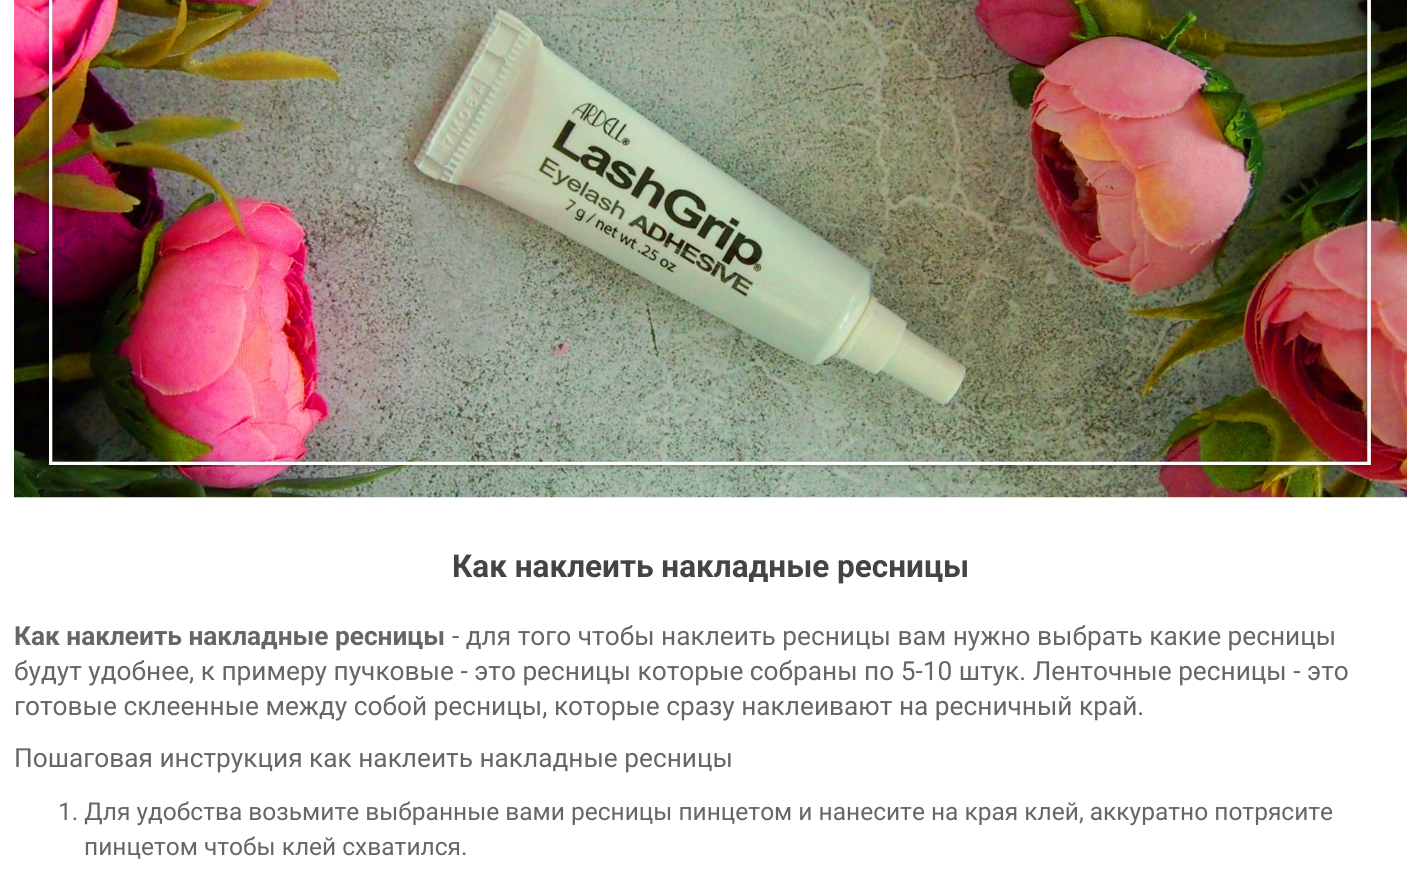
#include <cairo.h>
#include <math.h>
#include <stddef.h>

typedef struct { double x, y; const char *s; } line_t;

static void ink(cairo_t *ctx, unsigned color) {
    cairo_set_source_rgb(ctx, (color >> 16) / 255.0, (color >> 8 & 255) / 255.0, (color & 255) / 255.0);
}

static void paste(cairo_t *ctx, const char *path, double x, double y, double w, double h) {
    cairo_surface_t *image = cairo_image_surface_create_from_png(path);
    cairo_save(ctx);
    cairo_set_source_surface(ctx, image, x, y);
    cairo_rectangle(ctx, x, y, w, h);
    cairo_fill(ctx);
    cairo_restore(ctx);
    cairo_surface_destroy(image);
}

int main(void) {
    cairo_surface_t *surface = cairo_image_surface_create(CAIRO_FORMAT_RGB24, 1420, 884);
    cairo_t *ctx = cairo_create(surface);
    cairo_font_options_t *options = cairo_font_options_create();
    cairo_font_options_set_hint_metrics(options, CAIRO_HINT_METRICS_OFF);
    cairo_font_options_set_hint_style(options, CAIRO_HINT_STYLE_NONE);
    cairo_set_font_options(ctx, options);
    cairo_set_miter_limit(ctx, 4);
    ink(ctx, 0xFFFFFF);
    cairo_paint(ctx);
    paste(ctx, "media/1.png", 14, 0, 1393, 498);
    cairo_select_font_face(ctx, "Roboto", CAIRO_FONT_SLANT_NORMAL, CAIRO_FONT_WEIGHT_BOLD);
    cairo_set_font_size(ctx, 31.5);
    ink(ctx, 0x444444);
    cairo_move_to(ctx, 452, 577);
    cairo_show_text(ctx, "Как наклеить накладные ресницы");
    cairo_set_font_size(ctx, 26.25);
    ink(ctx, 0x666666);
    cairo_move_to(ctx, 14, 645);
    cairo_show_text(ctx, "Как наклеить накладные ресницы");
    cairo_select_font_face(ctx, "Roboto", CAIRO_FONT_SLANT_NORMAL, CAIRO_FONT_WEIGHT_NORMAL);
    {
        static const line_t items[] = {
            {452, 645, "- для того чтобы наклеить ресницы вам нужно выбрать какие ресницы"},
            {14, 680, "будут удобнее, к примеру пучковые - это ресницы которые собраны по 5-10 штук. Ленточные ресницы - это"},
            {14, 715, "готовые склеенные между собой ресницы, которые сразу наклеивают на ресничный край."},
            {14, 767, "Пошаговая инструкция как наклеить накладные ресницы"},
        };
        for (size_t i = 0; i < sizeof items / sizeof *items; i++) {
            cairo_move_to(ctx, items[i].x, items[i].y);
            cairo_show_text(ctx, items[i].s);
        }
    }
    cairo_set_font_size(ctx, 24.5);
    cairo_move_to(ctx, 58, 820);
    cairo_show_text(ctx, "1. Для удобства возьмите выбранные вами ресницы пинцетом и нанесите на края клей, аккуратно потрясите");
    cairo_move_to(ctx, 84, 855);
    cairo_show_text(ctx, "пинцетом чтобы клей схватился.");
    cairo_surface_write_to_png(surface, "image.png");
    cairo_font_options_destroy(options);
    cairo_destroy(ctx);
    cairo_surface_destroy(surface);
    return 0;
}
